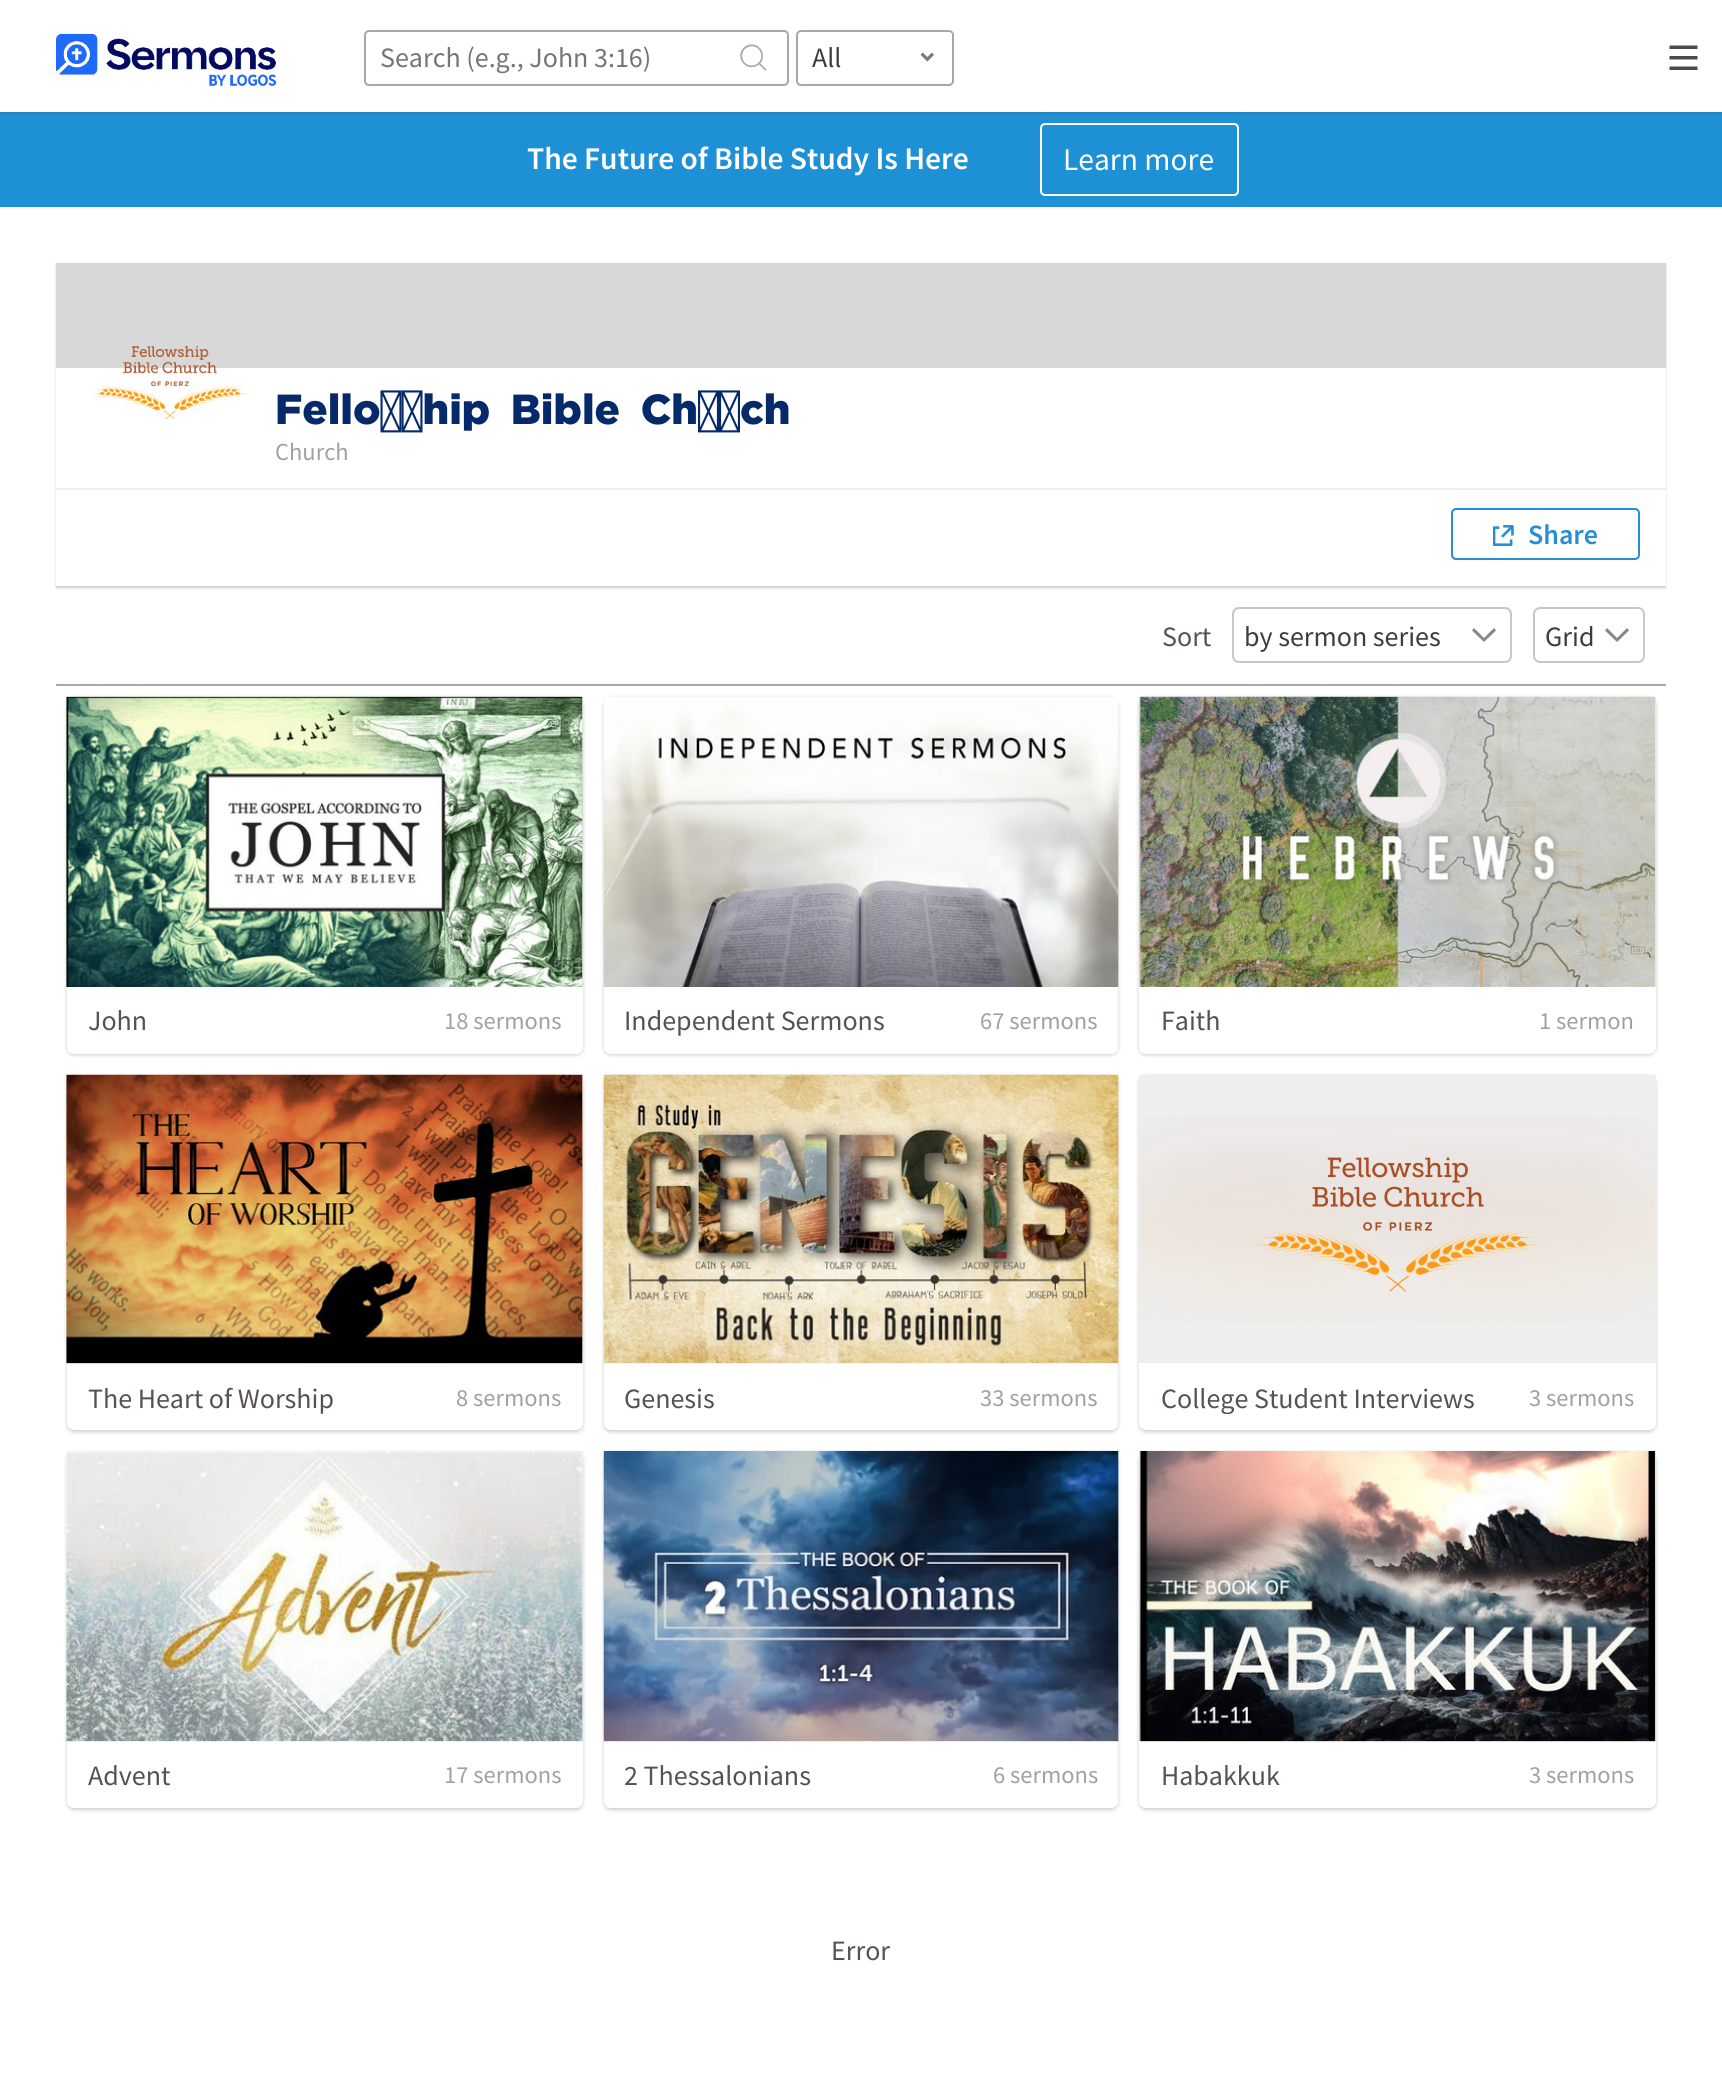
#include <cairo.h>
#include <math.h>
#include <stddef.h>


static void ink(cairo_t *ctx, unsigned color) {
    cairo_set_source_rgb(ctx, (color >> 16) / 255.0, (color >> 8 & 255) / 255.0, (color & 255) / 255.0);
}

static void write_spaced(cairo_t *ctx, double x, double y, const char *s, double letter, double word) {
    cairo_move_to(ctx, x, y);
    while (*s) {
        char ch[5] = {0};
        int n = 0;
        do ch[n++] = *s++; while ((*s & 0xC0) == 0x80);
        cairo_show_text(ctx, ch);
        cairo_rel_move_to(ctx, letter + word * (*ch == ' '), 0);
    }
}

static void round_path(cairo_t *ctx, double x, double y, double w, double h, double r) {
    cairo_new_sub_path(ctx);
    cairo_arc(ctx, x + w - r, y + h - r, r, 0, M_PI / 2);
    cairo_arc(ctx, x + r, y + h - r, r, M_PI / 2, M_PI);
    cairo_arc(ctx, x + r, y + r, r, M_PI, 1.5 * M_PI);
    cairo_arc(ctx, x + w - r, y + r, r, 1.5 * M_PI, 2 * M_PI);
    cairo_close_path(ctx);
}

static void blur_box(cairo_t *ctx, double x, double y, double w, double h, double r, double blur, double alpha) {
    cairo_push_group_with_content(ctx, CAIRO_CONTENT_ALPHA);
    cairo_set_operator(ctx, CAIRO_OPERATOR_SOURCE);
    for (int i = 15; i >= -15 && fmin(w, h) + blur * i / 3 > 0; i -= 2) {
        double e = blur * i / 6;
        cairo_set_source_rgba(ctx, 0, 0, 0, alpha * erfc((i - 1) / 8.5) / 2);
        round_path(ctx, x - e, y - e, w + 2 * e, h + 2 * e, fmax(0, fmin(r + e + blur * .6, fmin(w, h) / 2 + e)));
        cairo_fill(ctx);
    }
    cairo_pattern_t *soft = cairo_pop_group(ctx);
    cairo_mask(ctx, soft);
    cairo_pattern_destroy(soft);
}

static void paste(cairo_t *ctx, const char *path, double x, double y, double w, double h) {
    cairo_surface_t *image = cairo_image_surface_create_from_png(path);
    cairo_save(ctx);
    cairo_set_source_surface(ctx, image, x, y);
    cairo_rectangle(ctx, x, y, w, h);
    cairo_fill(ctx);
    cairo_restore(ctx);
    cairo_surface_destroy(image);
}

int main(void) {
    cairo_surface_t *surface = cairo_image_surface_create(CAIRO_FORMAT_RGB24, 1722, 2091);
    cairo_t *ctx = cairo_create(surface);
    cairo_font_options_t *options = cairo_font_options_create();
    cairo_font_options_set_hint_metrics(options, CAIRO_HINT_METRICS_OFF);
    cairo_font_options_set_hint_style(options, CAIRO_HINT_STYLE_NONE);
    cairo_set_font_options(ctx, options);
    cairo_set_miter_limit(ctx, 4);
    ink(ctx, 0xFFFFFF);
    cairo_paint(ctx);
    ink(ctx, 0x1E91D6);
    cairo_rectangle(ctx, 0, 112, 1722, 95);
    cairo_fill(ctx);
    cairo_save(ctx);
    cairo_rectangle(ctx, 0, 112, 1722, 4);
    cairo_clip(ctx);
    ink(ctx, 0x000000);
    blur_box(ctx, 0, 2, 1722, 112, 0, 2, 0.1);
    cairo_restore(ctx);
    round_path(ctx, 1041, 124, 197, 71, 4);
    ink(ctx, 0xFFFFFF);
    cairo_stroke(ctx);
    cairo_save(ctx);
    cairo_set_fill_rule(ctx, CAIRO_FILL_RULE_EVEN_ODD);
    cairo_new_path(ctx);
    cairo_move_to(ctx, 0, 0);
    cairo_line_to(ctx, 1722, 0);
    cairo_line_to(ctx, 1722, 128);
    cairo_line_to(ctx, 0, 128);
    cairo_close_path(ctx);
    cairo_move_to(ctx, 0, 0);
    cairo_line_to(ctx, 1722, 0);
    cairo_line_to(ctx, 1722, 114);
    cairo_line_to(ctx, 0, 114);
    cairo_close_path(ctx);
    cairo_clip(ctx);
    ink(ctx, 0x6E83B7);
    blur_box(ctx, 2, 5, 1718, 111, 0, 3.5, 0.2);
    cairo_restore(ctx);
    paste(ctx, "media/1.png", 56, 33, 220, 54);
    round_path(ctx, 365, 31, 423, 54, 4);
    ink(ctx, 0xA8A8A8);
    cairo_stroke(ctx);
    cairo_select_font_face(ctx, "Source Sans Pro", CAIRO_FONT_SLANT_NORMAL, CAIRO_FONT_WEIGHT_NORMAL);
    cairo_set_font_size(ctx, 28);
    ink(ctx, 0x757575);
    cairo_move_to(ctx, 380, 67);
    cairo_show_text(ctx, "Search (e.g., John 3:16)");
    paste(ctx, "media/2.png", 740, 44, 27, 27);
    round_path(ctx, 797, 31, 156, 54, 4);
    ink(ctx, 0xA8A8A8);
    cairo_stroke(ctx);
    ink(ctx, 0x3D3D3D);
    cairo_move_to(ctx, 812, 67);
    cairo_show_text(ctx, "All");
    paste(ctx, "media/3.png", 920, 52, 14, 10);
    paste(ctx, "media/4.png", 1669, 45, 29, 25);
    cairo_select_font_face(ctx, "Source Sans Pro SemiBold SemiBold", CAIRO_FONT_SLANT_NORMAL, CAIRO_FONT_WEIGHT_NORMAL);
    cairo_set_font_size(ctx, 31.5);
    ink(ctx, 0xFFFFFF);
    cairo_move_to(ctx, 527, 169);
    cairo_show_text(ctx, "The Future of Bible Study Is Here");
    cairo_select_font_face(ctx, "Source Sans Pro", CAIRO_FONT_SLANT_NORMAL, CAIRO_FONT_WEIGHT_NORMAL);
    cairo_move_to(ctx, 1063, 170);
    cairo_show_text(ctx, "Learn more");
    cairo_save(ctx);
    cairo_set_fill_rule(ctx, CAIRO_FILL_RULE_EVEN_ODD);
    cairo_new_path(ctx);
    cairo_move_to(ctx, 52, 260);
    cairo_line_to(ctx, 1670, 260);
    cairo_line_to(ctx, 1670, 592);
    cairo_line_to(ctx, 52, 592);
    cairo_close_path(ctx);
    cairo_move_to(ctx, 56, 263);
    cairo_line_to(ctx, 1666, 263);
    cairo_line_to(ctx, 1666, 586);
    cairo_line_to(ctx, 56, 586);
    cairo_close_path(ctx);
    cairo_clip(ctx);
    ink(ctx, 0x000000);
    blur_box(ctx, 56, 264, 1610, 324, 0, 1, 0.2);
    cairo_restore(ctx);
    ink(ctx, 0xEEEEEE);
    cairo_rectangle(ctx, 56, 488, 1610, 2);
    cairo_fill(ctx);
    ink(ctx, 0xD8D8D8);
    cairo_rectangle(ctx, 56, 263, 1610, 105);
    cairo_fill(ctx);
    paste(ctx, "media/5.png", 91, 346, 157, 74);
    cairo_select_font_face(ctx, "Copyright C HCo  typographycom", CAIRO_FONT_SLANT_NORMAL, CAIRO_FONT_WEIGHT_NORMAL);
    cairo_set_font_size(ctx, 42);
    ink(ctx, 0x06296C);
    write_spaced(ctx, 275, 424, "Fellowship Bible Church", 0, 9);
    cairo_select_font_face(ctx, "Source Sans Pro", CAIRO_FONT_SLANT_NORMAL, CAIRO_FONT_WEIGHT_NORMAL);
    cairo_set_font_size(ctx, 24.5);
    ink(ctx, 0xA1A1A1);
    cairo_move_to(ctx, 275, 460);
    cairo_show_text(ctx, "Church");
    round_path(ctx, 1452, 509, 187, 50, 4);
    ink(ctx, 0x278ED4);
    cairo_stroke(ctx);
    paste(ctx, "media/6.png", 1493, 525, 21, 21);
    cairo_select_font_face(ctx, "Source Sans Pro SemiBold SemiBold", CAIRO_FONT_SLANT_NORMAL, CAIRO_FONT_WEIGHT_NORMAL);
    cairo_set_font_size(ctx, 28);
    cairo_move_to(ctx, 1528, 544);
    cairo_show_text(ctx, "Share");
    ink(ctx, 0xA8A8A8);
    cairo_rectangle(ctx, 56, 684, 1610, 2);
    cairo_fill(ctx);
    cairo_select_font_face(ctx, "Source Sans Pro", CAIRO_FONT_SLANT_NORMAL, CAIRO_FONT_WEIGHT_NORMAL);
    ink(ctx, 0x575251);
    cairo_move_to(ctx, 1162, 646);
    cairo_show_text(ctx, "Sort");
    round_path(ctx, 1233, 608, 278, 54, 6);
    ink(ctx, 0xC7C7C7);
    cairo_stroke(ctx);
    ink(ctx, 0x3D3D3D);
    cairo_move_to(ctx, 1244, 646);
    cairo_show_text(ctx, "by sermon series");
    ink(ctx, 0x888888);
    cairo_new_path(ctx);
    cairo_move_to(ctx, 1484, 642);
    cairo_line_to(ctx, 1472, 630.5);
    cairo_line_to(ctx, 1474, 628);
    cairo_line_to(ctx, 1484, 638);
    cairo_line_to(ctx, 1494, 628);
    cairo_line_to(ctx, 1496, 630.5);
    cairo_close_path(ctx);
    cairo_fill(ctx);
    round_path(ctx, 1534, 608, 110, 54, 6);
    ink(ctx, 0xC7C7C7);
    cairo_stroke(ctx);
    ink(ctx, 0x3D3D3D);
    cairo_move_to(ctx, 1545, 646);
    cairo_show_text(ctx, "Grid");
    ink(ctx, 0x888888);
    cairo_new_path(ctx);
    cairo_move_to(ctx, 1617, 642);
    cairo_line_to(ctx, 1605, 630.5);
    cairo_line_to(ctx, 1607, 628);
    cairo_line_to(ctx, 1617, 638);
    cairo_line_to(ctx, 1627, 628);
    cairo_line_to(ctx, 1629, 630.5);
    cairo_close_path(ctx);
    cairo_fill(ctx);
    ink(ctx, 0x000000);
    blur_box(ctx, 67, 698, 516, 357, 7, 2, 0.2);
    ink(ctx, 0xFFFFFF);
    cairo_new_path(ctx);
    cairo_move_to(ctx, 67, 697);
    cairo_line_to(ctx, 583, 697);
    cairo_line_to(ctx, 583, 1047);
    cairo_curve_to(ctx, 583, 1051, 580, 1054, 576, 1054);
    cairo_line_to(ctx, 74, 1054);
    cairo_curve_to(ctx, 70, 1054, 67, 1051, 67, 1047);
    cairo_close_path(ctx);
    cairo_fill(ctx);
    ink(ctx, 0xEEEEEE);
    cairo_rectangle(ctx, 582, 697, 1, 290);
    cairo_fill(ctx);
    paste(ctx, "media/7.png", 66, 696, 517, 291);
    paste(ctx, "media/8.png", 66, 696, 517, 291);
    ink(ctx, 0x575251);
    cairo_move_to(ctx, 88, 1030);
    cairo_show_text(ctx, "John");
    cairo_set_font_size(ctx, 24.5);
    ink(ctx, 0xA1A1A1);
    cairo_move_to(ctx, 444, 1029);
    cairo_show_text(ctx, "18 sermons");
    ink(ctx, 0x000000);
    blur_box(ctx, 604, 698, 514, 357, 7, 2, 0.2);
    ink(ctx, 0xFFFFFF);
    cairo_new_path(ctx);
    cairo_move_to(ctx, 604, 697);
    cairo_line_to(ctx, 1118, 697);
    cairo_line_to(ctx, 1118, 1047);
    cairo_curve_to(ctx, 1118, 1051, 1115, 1054, 1111, 1054);
    cairo_line_to(ctx, 611, 1054);
    cairo_curve_to(ctx, 607, 1054, 604, 1051, 604, 1047);
    cairo_close_path(ctx);
    cairo_fill(ctx);
    paste(ctx, "media/10.png", 603, 748, 516, 239);
    paste(ctx, "media/9.png", 603, 697, 516, 290);
    cairo_set_font_size(ctx, 28);
    ink(ctx, 0x575251);
    cairo_move_to(ctx, 624, 1030);
    cairo_show_text(ctx, "Independent Sermons");
    cairo_set_font_size(ctx, 24.5);
    ink(ctx, 0xA1A1A1);
    cairo_move_to(ctx, 980, 1029);
    cairo_show_text(ctx, "67 sermons");
    ink(ctx, 0x000000);
    blur_box(ctx, 1139, 698, 517, 357, 7, 2, 0.2);
    ink(ctx, 0xFFFFFF);
    cairo_new_path(ctx);
    cairo_move_to(ctx, 1139, 697);
    cairo_line_to(ctx, 1656, 697);
    cairo_line_to(ctx, 1656, 1047);
    cairo_curve_to(ctx, 1656, 1051, 1653, 1054, 1649, 1054);
    cairo_line_to(ctx, 1146, 1054);
    cairo_curve_to(ctx, 1142, 1054, 1139, 1051, 1139, 1047);
    cairo_close_path(ctx);
    cairo_fill(ctx);
    ink(ctx, 0xEEEEEE);
    cairo_rectangle(ctx, 1139, 697, 517, 290);
    cairo_fill(ctx);
    paste(ctx, "media/11.png", 1139, 696, 517, 291);
    paste(ctx, "media/12.png", 1140, 696, 515, 291);
    cairo_set_font_size(ctx, 28);
    ink(ctx, 0x575251);
    cairo_move_to(ctx, 1161, 1030);
    cairo_show_text(ctx, "Faith");
    cairo_set_font_size(ctx, 24.5);
    ink(ctx, 0xA1A1A1);
    cairo_move_to(ctx, 1539, 1029);
    cairo_show_text(ctx, "1 sermon");
    ink(ctx, 0x000000);
    blur_box(ctx, 67, 1076, 516, 356, 7, 2, 0.2);
    ink(ctx, 0xFFFFFF);
    cairo_new_path(ctx);
    cairo_move_to(ctx, 67, 1075);
    cairo_line_to(ctx, 583, 1075);
    cairo_line_to(ctx, 583, 1423);
    cairo_curve_to(ctx, 583, 1427, 580, 1430, 576, 1430);
    cairo_line_to(ctx, 74, 1430);
    cairo_curve_to(ctx, 70, 1430, 67, 1427, 67, 1423);
    cairo_close_path(ctx);
    cairo_fill(ctx);
    ink(ctx, 0xEEEEEE);
    cairo_rectangle(ctx, 582, 1075, 1, 288);
    cairo_fill(ctx);
    paste(ctx, "media/13.png", 66, 1074, 517, 290);
    paste(ctx, "media/14.png", 66, 1074, 517, 290);
    cairo_set_font_size(ctx, 28);
    ink(ctx, 0x575251);
    cairo_move_to(ctx, 88, 1408);
    cairo_show_text(ctx, "The Heart of Worship");
    cairo_set_font_size(ctx, 24.5);
    ink(ctx, 0xA1A1A1);
    cairo_move_to(ctx, 456, 1406);
    cairo_show_text(ctx, "8 sermons");
    ink(ctx, 0x000000);
    blur_box(ctx, 604, 1076, 514, 356, 7, 2, 0.2);
    ink(ctx, 0xFFFFFF);
    cairo_new_path(ctx);
    cairo_move_to(ctx, 604, 1075);
    cairo_line_to(ctx, 1118, 1075);
    cairo_line_to(ctx, 1118, 1423);
    cairo_curve_to(ctx, 1118, 1427, 1115, 1430, 1111, 1430);
    cairo_line_to(ctx, 611, 1430);
    cairo_curve_to(ctx, 607, 1430, 604, 1427, 604, 1423);
    cairo_close_path(ctx);
    cairo_fill(ctx);
    paste(ctx, "media/15.png", 603, 1074, 516, 290);
    paste(ctx, "media/16.png", 603, 1074, 516, 290);
    cairo_set_font_size(ctx, 28);
    ink(ctx, 0x575251);
    cairo_move_to(ctx, 624, 1408);
    cairo_show_text(ctx, "Genesis");
    cairo_set_font_size(ctx, 24.5);
    ink(ctx, 0xA1A1A1);
    cairo_move_to(ctx, 980, 1406);
    cairo_show_text(ctx, "33 sermons");
    ink(ctx, 0x000000);
    blur_box(ctx, 1139, 1076, 517, 356, 7, 2, 0.2);
    ink(ctx, 0xFFFFFF);
    cairo_new_path(ctx);
    cairo_move_to(ctx, 1139, 1075);
    cairo_line_to(ctx, 1656, 1075);
    cairo_line_to(ctx, 1656, 1423);
    cairo_curve_to(ctx, 1656, 1427, 1653, 1430, 1649, 1430);
    cairo_line_to(ctx, 1146, 1430);
    cairo_curve_to(ctx, 1142, 1430, 1139, 1427, 1139, 1423);
    cairo_close_path(ctx);
    cairo_fill(ctx);
    ink(ctx, 0xEEEEEE);
    cairo_rectangle(ctx, 1139, 1075, 517, 288);
    cairo_fill(ctx);
    paste(ctx, "media/17.png", 1139, 1117, 517, 206);
    paste(ctx, "media/18.png", 1254, 1157, 287, 135);
    cairo_save(ctx);
    cairo_rectangle(ctx, 1160, 1379, 315, 35);
    cairo_clip(ctx);
    cairo_set_font_size(ctx, 28);
    ink(ctx, 0x575251);
    cairo_move_to(ctx, 1161, 1408);
    cairo_show_text(ctx, "College Student Interviews");
    cairo_restore(ctx);
    ink(ctx, 0xA1A1A1);
    cairo_move_to(ctx, 1529, 1406);
    cairo_show_text(ctx, "3 sermons");
    ink(ctx, 0x000000);
    blur_box(ctx, 67, 1453, 516, 357, 7, 2, 0.2);
    ink(ctx, 0xFFFFFF);
    cairo_new_path(ctx);
    cairo_move_to(ctx, 67, 1451);
    cairo_line_to(ctx, 583, 1451);
    cairo_line_to(ctx, 583, 1801);
    cairo_curve_to(ctx, 583, 1805, 580, 1808, 576, 1808);
    cairo_line_to(ctx, 74, 1808);
    cairo_curve_to(ctx, 70, 1808, 67, 1805, 67, 1801);
    cairo_close_path(ctx);
    cairo_fill(ctx);
    ink(ctx, 0xEEEEEE);
    cairo_rectangle(ctx, 582, 1451, 1, 290);
    cairo_fill(ctx);
    paste(ctx, "media/20.png", 66, 1457, 517, 285);
    paste(ctx, "media/19.png", 66, 1451, 517, 291);
    cairo_set_font_size(ctx, 28);
    ink(ctx, 0x575251);
    cairo_move_to(ctx, 88, 1785);
    cairo_show_text(ctx, "Advent");
    cairo_set_font_size(ctx, 24.5);
    ink(ctx, 0xA1A1A1);
    cairo_move_to(ctx, 444, 1783);
    cairo_show_text(ctx, "17 sermons");
    ink(ctx, 0x000000);
    blur_box(ctx, 604, 1453, 514, 357, 7, 2, 0.2);
    ink(ctx, 0xFFFFFF);
    cairo_new_path(ctx);
    cairo_move_to(ctx, 604, 1451);
    cairo_line_to(ctx, 1118, 1451);
    cairo_line_to(ctx, 1118, 1801);
    cairo_curve_to(ctx, 1118, 1805, 1115, 1808, 1111, 1808);
    cairo_line_to(ctx, 611, 1808);
    cairo_curve_to(ctx, 607, 1808, 604, 1805, 604, 1801);
    cairo_close_path(ctx);
    cairo_fill(ctx);
    paste(ctx, "media/21.png", 603, 1450, 516, 292);
    paste(ctx, "media/22.png", 603, 1451, 516, 291);
    cairo_set_font_size(ctx, 28);
    ink(ctx, 0x575251);
    cairo_move_to(ctx, 624, 1785);
    cairo_show_text(ctx, "2 Thessalonians");
    cairo_set_font_size(ctx, 24.5);
    ink(ctx, 0xA1A1A1);
    cairo_move_to(ctx, 993, 1783);
    cairo_show_text(ctx, "6 sermons");
    ink(ctx, 0x000000);
    blur_box(ctx, 1139, 1453, 517, 357, 7, 2, 0.2);
    ink(ctx, 0xFFFFFF);
    cairo_new_path(ctx);
    cairo_move_to(ctx, 1139, 1451);
    cairo_line_to(ctx, 1656, 1451);
    cairo_line_to(ctx, 1656, 1801);
    cairo_curve_to(ctx, 1656, 1805, 1653, 1808, 1649, 1808);
    cairo_line_to(ctx, 1146, 1808);
    cairo_curve_to(ctx, 1142, 1808, 1139, 1805, 1139, 1801);
    cairo_close_path(ctx);
    cairo_fill(ctx);
    ink(ctx, 0xEEEEEE);
    cairo_rectangle(ctx, 1139, 1451, 517, 290);
    cairo_fill(ctx);
    paste(ctx, "media/23.png", 1139, 1450, 517, 292);
    paste(ctx, "media/24.png", 1140, 1451, 515, 291);
    cairo_set_font_size(ctx, 28);
    ink(ctx, 0x575251);
    cairo_move_to(ctx, 1161, 1785);
    cairo_show_text(ctx, "Habakkuk");
    cairo_set_font_size(ctx, 24.5);
    ink(ctx, 0xA1A1A1);
    cairo_move_to(ctx, 1529, 1783);
    cairo_show_text(ctx, "3 sermons");
    cairo_set_font_size(ctx, 28);
    ink(ctx, 0x575251);
    cairo_move_to(ctx, 831, 1960);
    cairo_show_text(ctx, "Error");
    cairo_surface_write_to_png(surface, "image.png");
    cairo_font_options_destroy(options);
    cairo_destroy(ctx);
    cairo_surface_destroy(surface);
    return 0;
}
